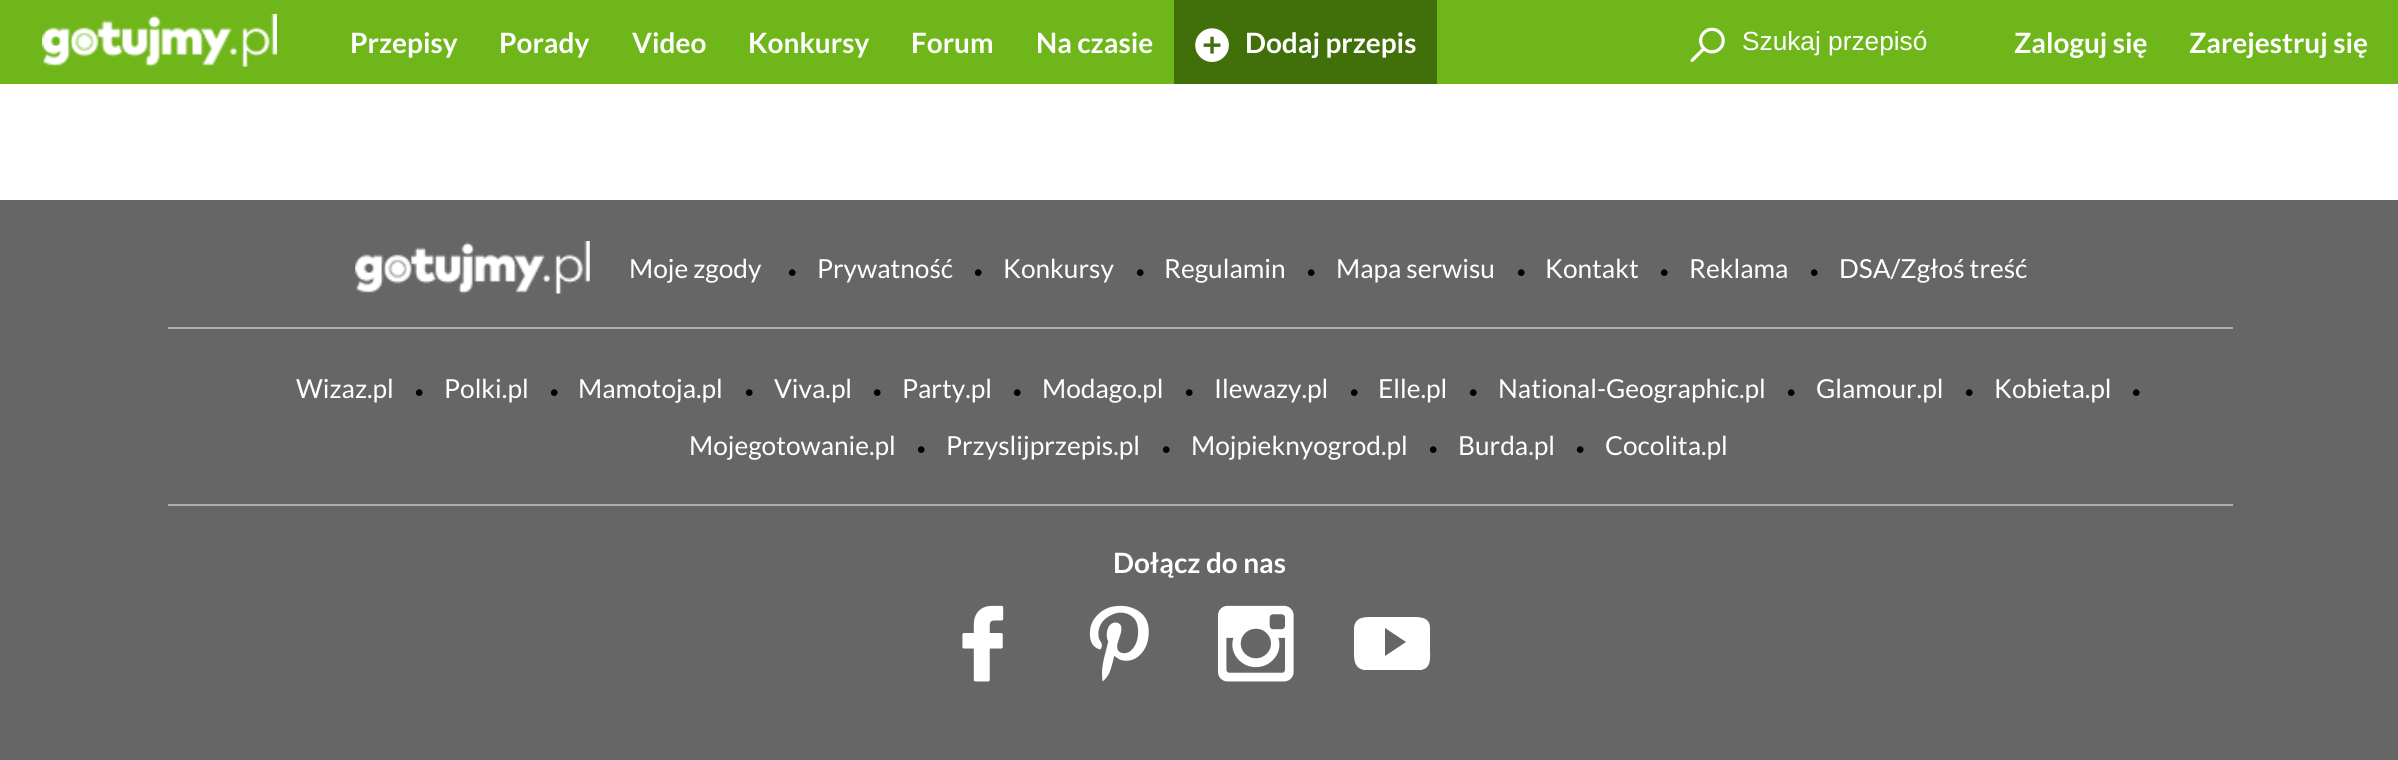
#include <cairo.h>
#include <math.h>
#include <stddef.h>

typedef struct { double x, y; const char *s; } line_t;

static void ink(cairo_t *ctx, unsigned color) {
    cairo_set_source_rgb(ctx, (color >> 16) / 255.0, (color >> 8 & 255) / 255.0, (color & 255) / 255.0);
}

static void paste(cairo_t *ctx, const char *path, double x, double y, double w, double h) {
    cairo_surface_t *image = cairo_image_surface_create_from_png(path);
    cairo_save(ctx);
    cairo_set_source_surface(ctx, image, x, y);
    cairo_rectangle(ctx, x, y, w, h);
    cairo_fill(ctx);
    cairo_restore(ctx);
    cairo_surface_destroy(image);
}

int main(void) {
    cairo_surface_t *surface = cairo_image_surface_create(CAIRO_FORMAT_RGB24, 2398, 760);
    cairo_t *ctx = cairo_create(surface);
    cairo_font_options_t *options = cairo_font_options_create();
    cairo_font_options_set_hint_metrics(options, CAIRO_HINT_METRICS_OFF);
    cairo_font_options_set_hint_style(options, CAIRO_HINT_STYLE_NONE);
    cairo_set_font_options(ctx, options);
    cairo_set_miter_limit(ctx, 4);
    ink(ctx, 0xFFFFFF);
    cairo_paint(ctx);
    ink(ctx, 0x6FB61B);
    cairo_rectangle(ctx, 0, 0, 2398, 84);
    cairo_fill(ctx);
    paste(ctx, "media/1.png", 42, 14, 235, 53);
    cairo_select_font_face(ctx, "Lato", CAIRO_FONT_SLANT_NORMAL, CAIRO_FONT_WEIGHT_BOLD);
    cairo_set_font_size(ctx, 28);
    ink(ctx, 0xFFFFFF);
    {
        static const line_t items[] = {
            {350, 53, "Przepisy"},
            {499, 53, "Porady"},
            {632, 53, "Video"},
            {748, 53, "Konkursy"},
            {911, 53, "Forum"},
            {1036, 53, "Na czasie"},
        };
        for (size_t i = 0; i < sizeof items / sizeof *items; i++) {
            cairo_move_to(ctx, items[i].x, items[i].y);
            cairo_show_text(ctx, items[i].s);
        }
    }
    ink(ctx, 0x416F0A);
    cairo_rectangle(ctx, 1174, 0, 263, 84);
    cairo_fill(ctx);
    paste(ctx, "media/2.png", 1195, 28, 34, 34);
    ink(ctx, 0xFFFFFF);
    cairo_move_to(ctx, 1245, 53);
    cairo_show_text(ctx, "Dodaj przepis");
    paste(ctx, "media/3.png", 1690, 27, 35, 35);
    cairo_select_font_face(ctx, "Liberation Sans", CAIRO_FONT_SLANT_NORMAL, CAIRO_FONT_WEIGHT_NORMAL);
    cairo_set_font_size(ctx, 26.25);
    cairo_move_to(ctx, 1742, 50);
    cairo_show_text(ctx, "Szukaj przepisó");
    cairo_select_font_face(ctx, "Lato", CAIRO_FONT_SLANT_NORMAL, CAIRO_FONT_WEIGHT_BOLD);
    cairo_set_font_size(ctx, 28);
    cairo_move_to(ctx, 2014, 53);
    cairo_show_text(ctx, "Zaloguj się");
    cairo_move_to(ctx, 2189, 53);
    cairo_show_text(ctx, "Zarejestruj się");
    ink(ctx, 0x666666);
    cairo_rectangle(ctx, 0, 200, 2398, 560);
    cairo_fill(ctx);
    ink(ctx, 0xAEAEAE);
    cairo_rectangle(ctx, 168, 327, 2065, 2);
    cairo_fill(ctx);
    paste(ctx, "media/4.png", 355, 241, 235, 53);
    cairo_select_font_face(ctx, "Lato", CAIRO_FONT_SLANT_NORMAL, CAIRO_FONT_WEIGHT_NORMAL);
    cairo_set_font_size(ctx, 26.25);
    ink(ctx, 0xFFFFFF);
    cairo_move_to(ctx, 629, 278);
    cairo_show_text(ctx, "Moje zgody");
    cairo_set_font_size(ctx, 18);
    ink(ctx, 0x000000);
    cairo_move_to(ctx, 787, 278);
    cairo_show_text(ctx, "•");
    cairo_set_font_size(ctx, 26.25);
    ink(ctx, 0xFFFFFF);
    cairo_move_to(ctx, 817, 278);
    cairo_show_text(ctx, "Prywatność");
    cairo_set_font_size(ctx, 18);
    ink(ctx, 0x000000);
    cairo_move_to(ctx, 973, 278);
    cairo_show_text(ctx, "•");
    cairo_set_font_size(ctx, 26.25);
    ink(ctx, 0xFFFFFF);
    cairo_move_to(ctx, 1003, 278);
    cairo_show_text(ctx, "Konkursy");
    cairo_set_font_size(ctx, 18);
    ink(ctx, 0x000000);
    cairo_move_to(ctx, 1135, 278);
    cairo_show_text(ctx, "•");
    cairo_set_font_size(ctx, 26.25);
    ink(ctx, 0xFFFFFF);
    cairo_move_to(ctx, 1164, 278);
    cairo_show_text(ctx, "Regulamin");
    cairo_set_font_size(ctx, 18);
    ink(ctx, 0x000000);
    cairo_move_to(ctx, 1306, 278);
    cairo_show_text(ctx, "•");
    cairo_set_font_size(ctx, 26.25);
    ink(ctx, 0xFFFFFF);
    cairo_move_to(ctx, 1336, 278);
    cairo_show_text(ctx, "Mapa serwisu");
    cairo_set_font_size(ctx, 18);
    ink(ctx, 0x000000);
    cairo_move_to(ctx, 1516, 278);
    cairo_show_text(ctx, "•");
    cairo_set_font_size(ctx, 26.25);
    ink(ctx, 0xFFFFFF);
    cairo_move_to(ctx, 1545, 278);
    cairo_show_text(ctx, "Kontakt");
    cairo_set_font_size(ctx, 18);
    ink(ctx, 0x000000);
    cairo_move_to(ctx, 1659, 278);
    cairo_show_text(ctx, "•");
    cairo_set_font_size(ctx, 26.25);
    ink(ctx, 0xFFFFFF);
    cairo_move_to(ctx, 1689, 278);
    cairo_show_text(ctx, "Reklama");
    cairo_set_font_size(ctx, 18);
    ink(ctx, 0x000000);
    cairo_move_to(ctx, 1809, 278);
    cairo_show_text(ctx, "•");
    cairo_set_font_size(ctx, 26.25);
    ink(ctx, 0xFFFFFF);
    cairo_move_to(ctx, 1839, 278);
    cairo_show_text(ctx, "DSA/Zgłoś treść");
    ink(ctx, 0xAEAEAE);
    cairo_rectangle(ctx, 168, 504, 2065, 2);
    cairo_fill(ctx);
    ink(ctx, 0xFFFFFF);
    cairo_move_to(ctx, 296, 398);
    cairo_show_text(ctx, "Wizaz.pl");
    cairo_set_font_size(ctx, 18);
    ink(ctx, 0x000000);
    cairo_move_to(ctx, 414, 398);
    cairo_show_text(ctx, "•");
    cairo_set_font_size(ctx, 26.25);
    ink(ctx, 0xFFFFFF);
    cairo_move_to(ctx, 444, 398);
    cairo_show_text(ctx, "Polki.pl");
    cairo_set_font_size(ctx, 18);
    ink(ctx, 0x000000);
    cairo_move_to(ctx, 549, 398);
    cairo_show_text(ctx, "•");
    cairo_set_font_size(ctx, 26.25);
    ink(ctx, 0xFFFFFF);
    cairo_move_to(ctx, 578, 398);
    cairo_show_text(ctx, "Mamotoja.pl");
    cairo_set_font_size(ctx, 18);
    ink(ctx, 0x000000);
    cairo_move_to(ctx, 744, 398);
    cairo_show_text(ctx, "•");
    cairo_set_font_size(ctx, 26.25);
    ink(ctx, 0xFFFFFF);
    cairo_move_to(ctx, 774, 398);
    cairo_show_text(ctx, "Viva.pl");
    cairo_set_font_size(ctx, 18);
    ink(ctx, 0x000000);
    cairo_move_to(ctx, 872, 398);
    cairo_show_text(ctx, "•");
    cairo_set_font_size(ctx, 26.25);
    ink(ctx, 0xFFFFFF);
    cairo_move_to(ctx, 902, 398);
    cairo_show_text(ctx, "Party.pl");
    cairo_set_font_size(ctx, 18);
    ink(ctx, 0x000000);
    cairo_move_to(ctx, 1012, 398);
    cairo_show_text(ctx, "•");
    cairo_set_font_size(ctx, 26.25);
    ink(ctx, 0xFFFFFF);
    cairo_move_to(ctx, 1042, 398);
    cairo_show_text(ctx, "Modago.pl");
    cairo_set_font_size(ctx, 18);
    ink(ctx, 0x000000);
    cairo_move_to(ctx, 1184, 398);
    cairo_show_text(ctx, "•");
    cairo_set_font_size(ctx, 26.25);
    ink(ctx, 0xFFFFFF);
    cairo_move_to(ctx, 1214, 398);
    cairo_show_text(ctx, "Ilewazy.pl");
    cairo_set_font_size(ctx, 18);
    ink(ctx, 0x000000);
    cairo_move_to(ctx, 1349, 398);
    cairo_show_text(ctx, "•");
    cairo_set_font_size(ctx, 26.25);
    ink(ctx, 0xFFFFFF);
    cairo_move_to(ctx, 1378, 398);
    cairo_show_text(ctx, "Elle.pl");
    cairo_set_font_size(ctx, 18);
    ink(ctx, 0x000000);
    cairo_move_to(ctx, 1468, 398);
    cairo_show_text(ctx, "•");
    cairo_set_font_size(ctx, 26.25);
    ink(ctx, 0xFFFFFF);
    cairo_move_to(ctx, 1498, 398);
    cairo_show_text(ctx, "National-Geographic.pl");
    cairo_set_font_size(ctx, 18);
    ink(ctx, 0x000000);
    cairo_move_to(ctx, 1786, 398);
    cairo_show_text(ctx, "•");
    cairo_set_font_size(ctx, 26.25);
    ink(ctx, 0xFFFFFF);
    cairo_move_to(ctx, 1816, 398);
    cairo_show_text(ctx, "Glamour.pl");
    cairo_set_font_size(ctx, 18);
    ink(ctx, 0x000000);
    cairo_move_to(ctx, 1964, 398);
    cairo_show_text(ctx, "•");
    cairo_set_font_size(ctx, 26.25);
    ink(ctx, 0xFFFFFF);
    cairo_move_to(ctx, 1994, 398);
    cairo_show_text(ctx, "Kobieta.pl");
    cairo_set_font_size(ctx, 18);
    ink(ctx, 0x000000);
    cairo_move_to(ctx, 2131, 398);
    cairo_show_text(ctx, "•");
    cairo_set_font_size(ctx, 26.25);
    ink(ctx, 0xFFFFFF);
    cairo_move_to(ctx, 689, 455);
    cairo_show_text(ctx, "Mojegotowanie.pl");
    cairo_set_font_size(ctx, 18);
    ink(ctx, 0x000000);
    cairo_move_to(ctx, 916, 455);
    cairo_show_text(ctx, "•");
    cairo_set_font_size(ctx, 26.25);
    ink(ctx, 0xFFFFFF);
    cairo_move_to(ctx, 946, 455);
    cairo_show_text(ctx, "Przyslijprzepis.pl");
    cairo_set_font_size(ctx, 18);
    ink(ctx, 0x000000);
    cairo_move_to(ctx, 1161, 455);
    cairo_show_text(ctx, "•");
    cairo_set_font_size(ctx, 26.25);
    ink(ctx, 0xFFFFFF);
    cairo_move_to(ctx, 1191, 455);
    cairo_show_text(ctx, "Mojpieknyogrod.pl");
    cairo_set_font_size(ctx, 18);
    ink(ctx, 0x000000);
    cairo_move_to(ctx, 1428, 455);
    cairo_show_text(ctx, "•");
    cairo_set_font_size(ctx, 26.25);
    ink(ctx, 0xFFFFFF);
    cairo_move_to(ctx, 1458, 455);
    cairo_show_text(ctx, "Burda.pl");
    cairo_set_font_size(ctx, 18);
    ink(ctx, 0x000000);
    cairo_move_to(ctx, 1575, 455);
    cairo_show_text(ctx, "•");
    cairo_set_font_size(ctx, 26.25);
    ink(ctx, 0xFFFFFF);
    cairo_move_to(ctx, 1605, 455);
    cairo_show_text(ctx, "Cocolita.pl");
    cairo_select_font_face(ctx, "Lato", CAIRO_FONT_SLANT_NORMAL, CAIRO_FONT_WEIGHT_BOLD);
    cairo_set_font_size(ctx, 28);
    cairo_move_to(ctx, 1113, 573);
    cairo_show_text(ctx, "Dołącz do nas");
    paste(ctx, "media/5.png", 962, 605, 42, 77);
    paste(ctx, "media/6.png", 1089, 605, 60, 77);
    paste(ctx, "media/7.png", 1218, 605, 76, 77);
    cairo_new_path(ctx);
    cairo_move_to(ctx, 1430, 628);
    cairo_line_to(ctx, 1430, 649);
    cairo_curve_to(ctx, 1430, 657, 1432, 668, 1421, 670);
    cairo_line_to(ctx, 1364, 670);
    cairo_curve_to(ctx, 1353, 668, 1354, 657, 1354, 649);
    cairo_line_to(ctx, 1354, 628);
    cairo_curve_to(ctx, 1355, 616, 1366, 617, 1375, 617);
    cairo_line_to(ctx, 1410, 617);
    cairo_curve_to(ctx, 1418, 617, 1430, 616, 1430, 628);
    cairo_close_path(ctx);
    cairo_move_to(ctx, 1385, 656);
    cairo_line_to(ctx, 1406, 642);
    cairo_line_to(ctx, 1385, 628);
    cairo_close_path(ctx);
    cairo_fill(ctx);
    cairo_surface_write_to_png(surface, "image.png");
    cairo_font_options_destroy(options);
    cairo_destroy(ctx);
    cairo_surface_destroy(surface);
    return 0;
}
